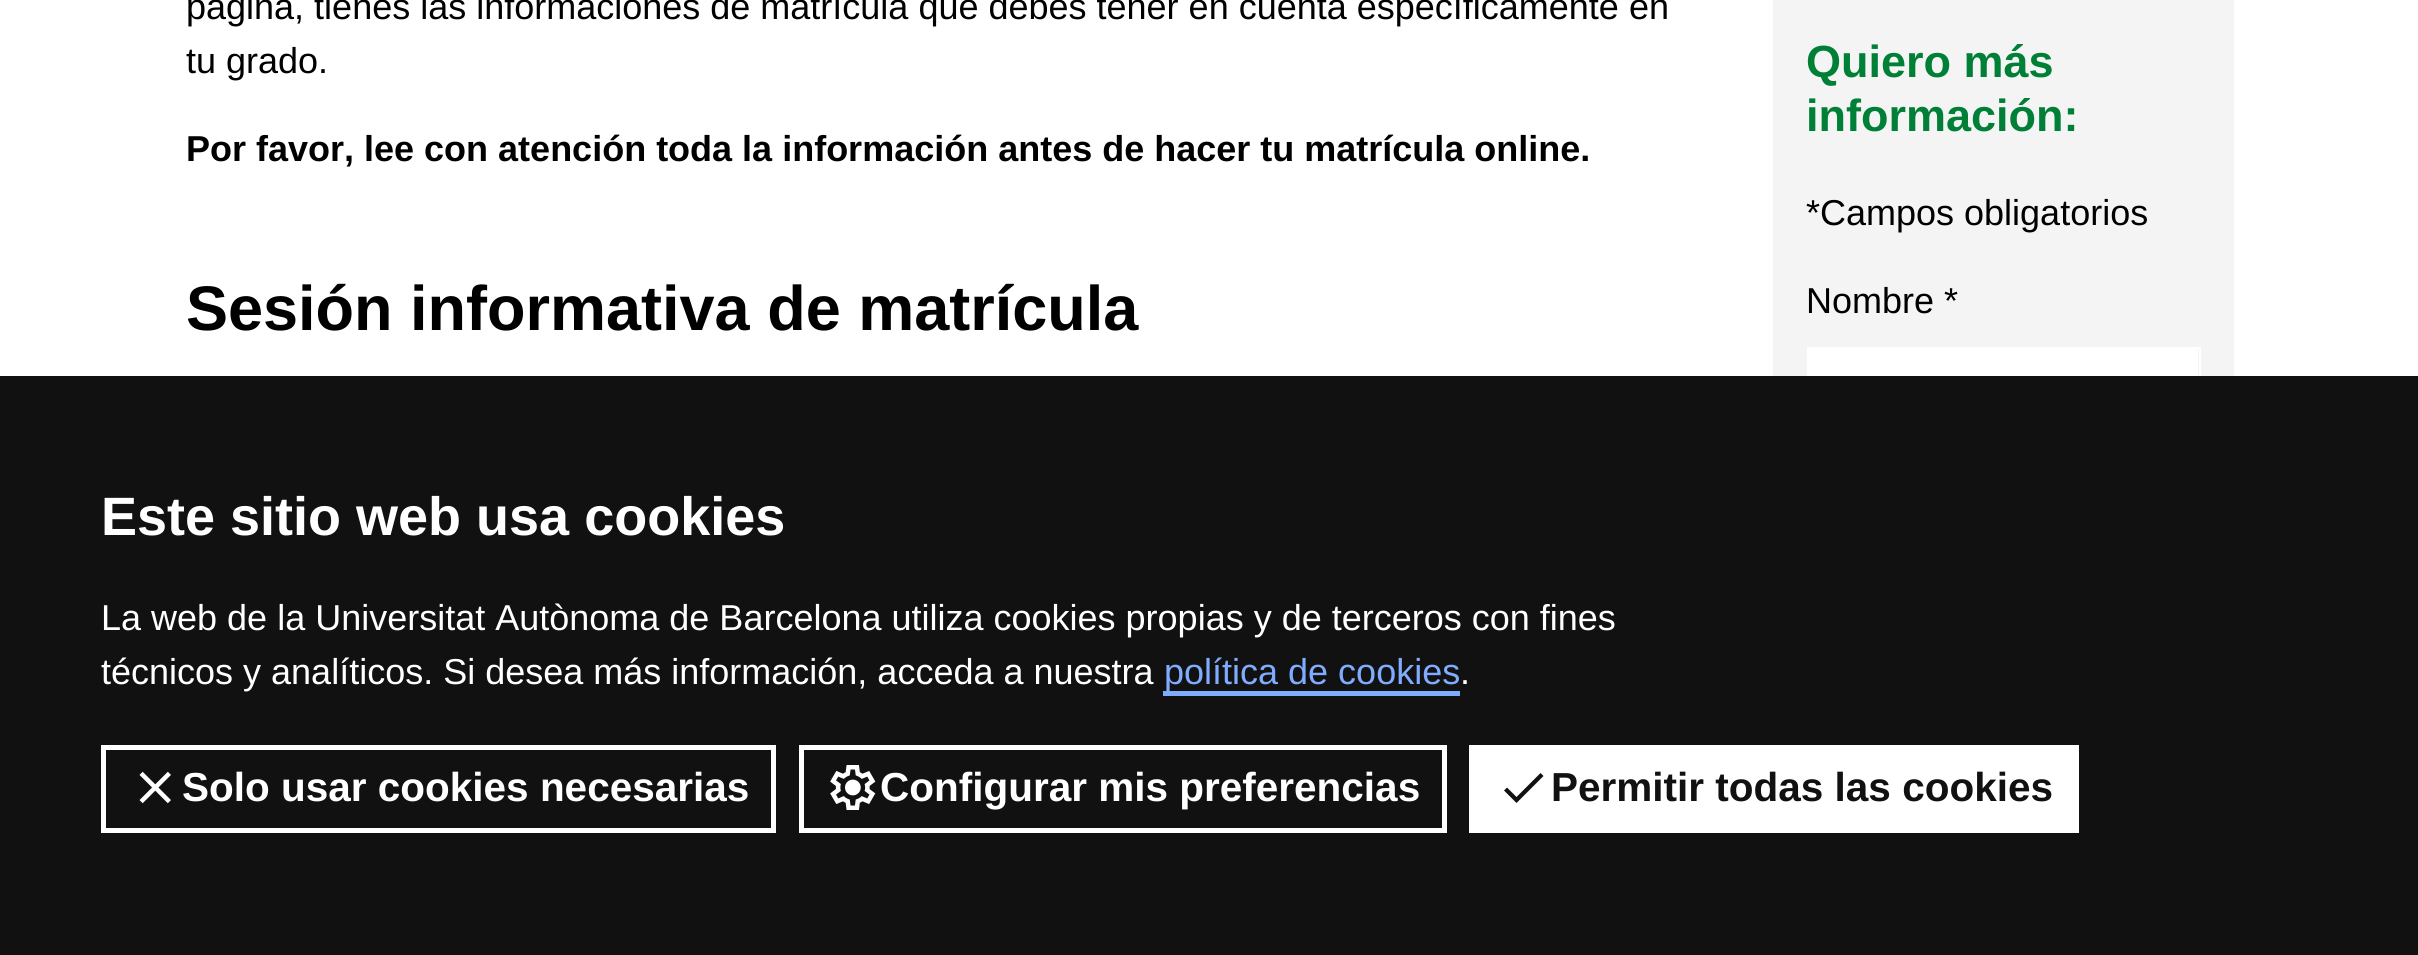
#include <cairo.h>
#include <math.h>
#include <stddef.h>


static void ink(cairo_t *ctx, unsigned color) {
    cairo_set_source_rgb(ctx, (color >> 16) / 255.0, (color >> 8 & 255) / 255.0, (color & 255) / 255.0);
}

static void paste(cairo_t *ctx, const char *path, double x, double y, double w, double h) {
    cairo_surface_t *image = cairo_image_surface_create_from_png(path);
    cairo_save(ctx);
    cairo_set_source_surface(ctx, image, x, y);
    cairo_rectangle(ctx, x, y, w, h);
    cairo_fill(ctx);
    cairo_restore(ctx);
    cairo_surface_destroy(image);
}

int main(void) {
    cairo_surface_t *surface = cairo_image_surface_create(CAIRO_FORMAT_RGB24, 2418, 955);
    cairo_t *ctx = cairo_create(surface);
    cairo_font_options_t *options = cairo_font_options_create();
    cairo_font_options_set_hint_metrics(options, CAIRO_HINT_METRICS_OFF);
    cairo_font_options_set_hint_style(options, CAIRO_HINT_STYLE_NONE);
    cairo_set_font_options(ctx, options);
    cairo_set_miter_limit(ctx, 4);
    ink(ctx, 0xFFFFFF);
    cairo_paint(ctx);
    cairo_select_font_face(ctx, "Liberation Sans", CAIRO_FONT_SLANT_NORMAL, CAIRO_FONT_WEIGHT_NORMAL);
    cairo_set_font_size(ctx, 36);
    ink(ctx, 0x000000);
    cairo_move_to(ctx, 186, 19);
    cairo_show_text(ctx, "página, tienes las informaciones de matrícula que debes tener en cuenta específicamente en");
    cairo_move_to(ctx, 186, 73);
    cairo_show_text(ctx, "tu grado.");
    cairo_select_font_face(ctx, "Liberation Sans", CAIRO_FONT_SLANT_NORMAL, CAIRO_FONT_WEIGHT_BOLD);
    cairo_move_to(ctx, 186, 161);
    cairo_show_text(ctx, "Por favor, lee con atención toda la información antes de hacer tu matrícula online.");
    cairo_set_font_size(ctx, 63);
    cairo_move_to(ctx, 186, 330);
    cairo_show_text(ctx, "Sesión informativa de matrícula");
    ink(ctx, 0xF4F4F4);
    cairo_rectangle(ctx, 1773, 0, 461, 376);
    cairo_fill(ctx);
    cairo_set_font_size(ctx, 45);
    ink(ctx, 0x008037);
    cairo_move_to(ctx, 1806, 77);
    cairo_show_text(ctx, "Quiero más");
    cairo_move_to(ctx, 1806, 131);
    cairo_show_text(ctx, "información:");
    cairo_select_font_face(ctx, "Liberation Sans", CAIRO_FONT_SLANT_NORMAL, CAIRO_FONT_WEIGHT_NORMAL);
    cairo_set_font_size(ctx, 36);
    ink(ctx, 0x000000);
    cairo_move_to(ctx, 1806, 225);
    cairo_show_text(ctx, "*Campos obligatorios");
    cairo_move_to(ctx, 1806, 313);
    cairo_show_text(ctx, "Nombre *");
    ink(ctx, 0xFFFFFF);
    cairo_rectangle(ctx, 1809, 349, 389, 27);
    cairo_fill(ctx);
    cairo_rectangle(ctx, 1808, 348, 392, 83);
    cairo_stroke(ctx);
    ink(ctx, 0x111111);
    cairo_rectangle(ctx, 0, 376, 2418, 579);
    cairo_fill(ctx);
    cairo_select_font_face(ctx, "Liberation Sans", CAIRO_FONT_SLANT_NORMAL, CAIRO_FONT_WEIGHT_BOLD);
    cairo_set_font_size(ctx, 54);
    ink(ctx, 0xFFFFFF);
    cairo_move_to(ctx, 101, 535);
    cairo_show_text(ctx, "Este sitio web usa cookies");
    cairo_select_font_face(ctx, "Liberation Sans", CAIRO_FONT_SLANT_NORMAL, CAIRO_FONT_WEIGHT_NORMAL);
    cairo_set_font_size(ctx, 36);
    cairo_move_to(ctx, 101, 630);
    cairo_show_text(ctx, "La web de la Universitat Autònoma de Barcelona utiliza cookies propias y de terceros con fines");
    cairo_move_to(ctx, 101, 684);
    cairo_show_text(ctx, "técnicos y analíticos. Si desea más información, acceda a nuestra");
    ink(ctx, 0x80ACFF);
    cairo_rectangle(ctx, 1163, 691, 297, 5);
    cairo_fill(ctx);
    cairo_move_to(ctx, 1164, 684);
    cairo_show_text(ctx, "política de cookies");
    ink(ctx, 0xFFFFFF);
    cairo_move_to(ctx, 1460, 684);
    cairo_show_text(ctx, ".");
    cairo_rectangle(ctx, 103.5, 747.5, 670, 83);
    cairo_set_line_width(ctx, 5);
    cairo_stroke(ctx);
    paste(ctx, "media/1.png", 139, 771, 32, 33);
    cairo_select_font_face(ctx, "Liberation Sans", CAIRO_FONT_SLANT_NORMAL, CAIRO_FONT_WEIGHT_BOLD);
    cairo_set_font_size(ctx, 40.5);
    cairo_move_to(ctx, 182, 801);
    cairo_show_text(ctx, "Solo usar cookies necesarias");
    cairo_rectangle(ctx, 801.5, 747.5, 643, 83);
    cairo_stroke(ctx);
    paste(ctx, "media/2.png", 830, 765, 46, 45);
    cairo_move_to(ctx, 880, 801);
    cairo_show_text(ctx, "Configurar mis preferencias");
    cairo_rectangle(ctx, 1469, 745, 610, 88);
    cairo_fill(ctx);
    ink(ctx, 0x111111);
    cairo_new_path(ctx);
    cairo_move_to(ctx, 1516.5, 797);
    cairo_line_to(ctx, 1507, 787.5);
    cairo_line_to(ctx, 1504, 790.5);
    cairo_line_to(ctx, 1516.5, 803);
    cairo_line_to(ctx, 1543.5, 776);
    cairo_line_to(ctx, 1540.5, 773);
    cairo_close_path(ctx);
    cairo_fill(ctx);
    cairo_move_to(ctx, 1551, 801);
    cairo_show_text(ctx, "Permitir todas las cookies");
    cairo_surface_write_to_png(surface, "image.png");
    cairo_font_options_destroy(options);
    cairo_destroy(ctx);
    cairo_surface_destroy(surface);
    return 0;
}
